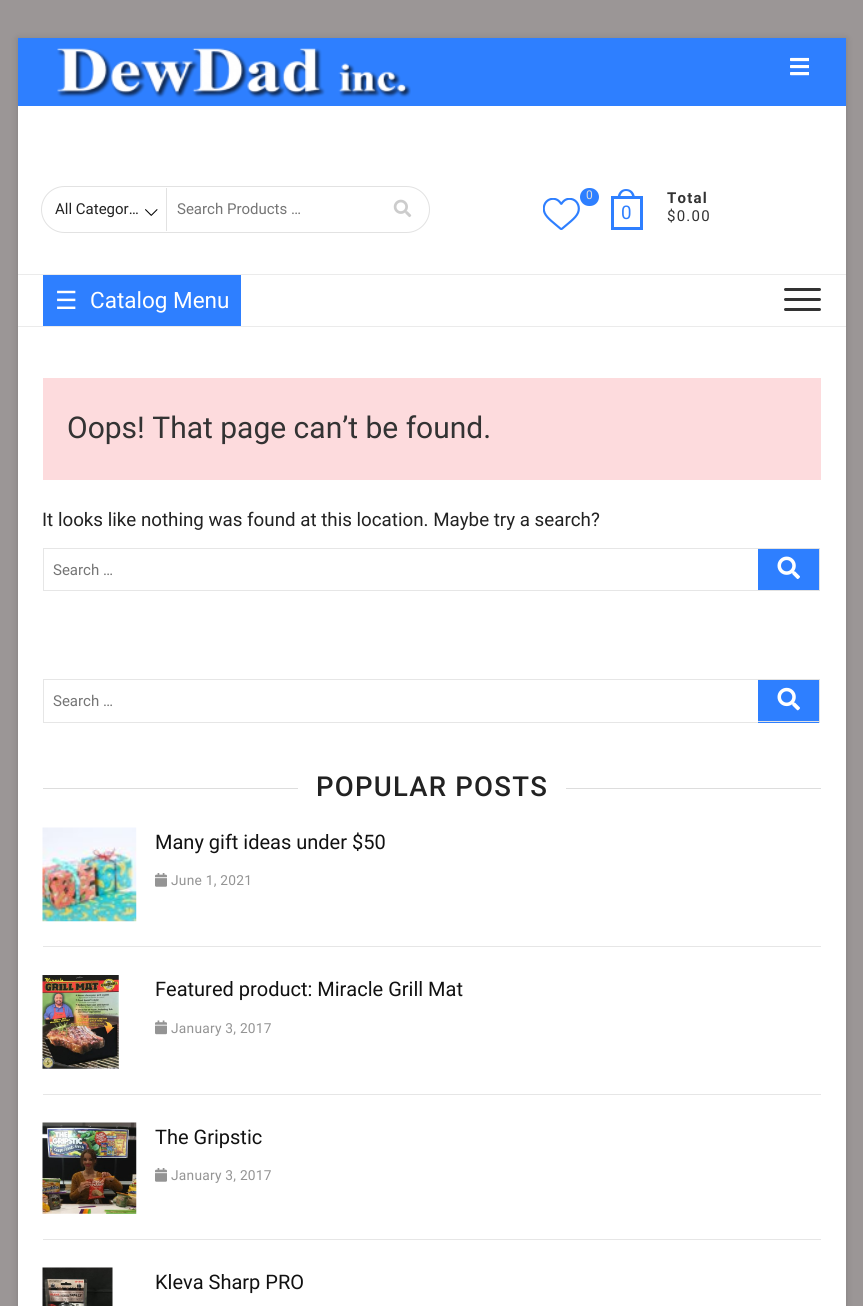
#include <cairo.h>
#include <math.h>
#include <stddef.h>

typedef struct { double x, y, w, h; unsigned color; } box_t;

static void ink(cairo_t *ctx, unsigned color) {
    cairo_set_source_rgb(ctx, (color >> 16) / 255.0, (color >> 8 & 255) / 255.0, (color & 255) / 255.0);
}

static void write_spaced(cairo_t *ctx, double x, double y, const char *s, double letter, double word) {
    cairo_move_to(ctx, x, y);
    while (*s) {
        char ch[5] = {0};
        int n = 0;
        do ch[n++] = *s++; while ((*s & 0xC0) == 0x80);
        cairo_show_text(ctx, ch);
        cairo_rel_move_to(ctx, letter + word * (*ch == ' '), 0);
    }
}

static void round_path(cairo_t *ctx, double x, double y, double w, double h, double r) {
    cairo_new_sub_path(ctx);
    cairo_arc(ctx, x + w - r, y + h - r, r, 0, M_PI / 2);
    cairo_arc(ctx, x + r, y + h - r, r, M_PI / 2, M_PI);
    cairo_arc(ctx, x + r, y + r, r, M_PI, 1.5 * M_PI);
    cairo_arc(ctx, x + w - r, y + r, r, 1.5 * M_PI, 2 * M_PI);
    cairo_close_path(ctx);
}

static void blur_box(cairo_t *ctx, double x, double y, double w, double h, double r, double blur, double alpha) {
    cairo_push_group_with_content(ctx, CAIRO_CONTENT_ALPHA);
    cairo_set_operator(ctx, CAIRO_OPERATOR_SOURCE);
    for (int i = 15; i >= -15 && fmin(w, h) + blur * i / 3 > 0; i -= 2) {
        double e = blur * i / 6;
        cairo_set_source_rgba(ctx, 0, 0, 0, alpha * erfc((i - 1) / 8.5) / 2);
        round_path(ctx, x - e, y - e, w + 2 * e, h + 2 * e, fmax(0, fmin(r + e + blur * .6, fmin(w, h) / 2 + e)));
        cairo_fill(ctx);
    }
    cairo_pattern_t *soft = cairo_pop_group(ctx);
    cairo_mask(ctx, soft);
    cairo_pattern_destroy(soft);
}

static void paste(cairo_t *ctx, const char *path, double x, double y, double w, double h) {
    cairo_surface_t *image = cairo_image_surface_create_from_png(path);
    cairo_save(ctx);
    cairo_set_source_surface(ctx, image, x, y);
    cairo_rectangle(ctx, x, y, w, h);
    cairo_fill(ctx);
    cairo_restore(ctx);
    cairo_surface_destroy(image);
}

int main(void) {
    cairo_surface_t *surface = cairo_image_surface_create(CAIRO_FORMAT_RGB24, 863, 1306);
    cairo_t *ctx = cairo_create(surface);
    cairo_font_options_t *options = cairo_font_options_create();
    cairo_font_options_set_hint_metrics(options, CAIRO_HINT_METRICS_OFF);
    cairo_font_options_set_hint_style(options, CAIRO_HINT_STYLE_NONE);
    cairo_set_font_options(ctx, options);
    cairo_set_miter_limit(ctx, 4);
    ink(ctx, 0x9B9696);
    cairo_paint(ctx);
    ink(ctx, 0x000000);
    blur_box(ctx, 18, 39, 828, 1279, 0, 4, 0.15);
    ink(ctx, 0xFFFFFF);
    cairo_rectangle(ctx, 18, 106, 828, 1200);
    cairo_fill(ctx);
    ink(ctx, 0x2E7FFF);
    cairo_rectangle(ctx, 18, 38, 828, 68);
    cairo_fill(ctx);
    paste(ctx, "media/1.png", 57, 48, 354, 50);
    paste(ctx, "media/2.png", 790, 57, 19, 19);
    round_path(ctx, 41.5, 186.5, 388, 46, 23);
    ink(ctx, 0xE2E2E2);
    cairo_set_line_width(ctx, 1);
    cairo_stroke(ctx);
    paste(ctx, "media/3.png", 145, 209, 13, 7);
    cairo_rectangle(ctx, 166, 188, 1, 43);
    cairo_fill(ctx);
    cairo_select_font_face(ctx, "Roboto", CAIRO_FONT_SLANT_NORMAL, CAIRO_FONT_WEIGHT_NORMAL);
    cairo_set_font_size(ctx, 15);
    ink(ctx, 0x222222);
    cairo_move_to(ctx, 55, 214);
    cairo_show_text(ctx, "All Categor…");
    ink(ctx, 0x757575);
    cairo_move_to(ctx, 177, 214);
    cairo_show_text(ctx, "Search Products …");
    paste(ctx, "media/4.png", 393, 199, 19, 19);
    ink(ctx, 0x2E7FFF);
    round_path(ctx, 580, 188, 19, 18, 9);
    cairo_fill(ctx);
    cairo_set_font_size(ctx, 12);
    ink(ctx, 0xDDDDDD);
    cairo_move_to(ctx, 586, 199);
    cairo_show_text(ctx, "0");
    paste(ctx, "media/5.png", 543, 198, 37, 32);
    cairo_rectangle(ctx, 612.5, 197.5, 29, 31);
    ink(ctx, 0x2E7FFF);
    cairo_set_line_width(ctx, 3);
    cairo_stroke(ctx);
    cairo_set_fill_rule(ctx, CAIRO_FILL_RULE_EVEN_ODD);
    cairo_new_path(ctx);
    cairo_move_to(ctx, 626, 189);
    cairo_curve_to(ctx, 632, 189, 635, 193.5, 635, 199);
    cairo_line_to(ctx, 617.5, 199);
    cairo_curve_to(ctx, 617.5, 193.5, 620.5, 189, 626, 189);
    cairo_close_path(ctx);
    cairo_move_to(ctx, 626, 191);
    cairo_curve_to(ctx, 630.5, 191, 632.5, 195, 632.5, 199);
    cairo_line_to(ctx, 620, 199);
    cairo_curve_to(ctx, 620, 195, 622, 191, 626, 191);
    cairo_close_path(ctx);
    cairo_fill(ctx);
    cairo_set_font_size(ctx, 18.75);
    cairo_move_to(ctx, 621, 219);
    cairo_show_text(ctx, "0");
    cairo_select_font_face(ctx, "Roboto", CAIRO_FONT_SLANT_NORMAL, CAIRO_FONT_WEIGHT_BOLD);
    cairo_set_font_size(ctx, 15);
    ink(ctx, 0x333333);
    write_spaced(ctx, 667, 203, "Total", 1.25, 0);
    cairo_select_font_face(ctx, "Roboto", CAIRO_FONT_SLANT_NORMAL, CAIRO_FONT_WEIGHT_NORMAL);
    write_spaced(ctx, 667, 221, "$0.00", 1.25, 0);
    {
        static const box_t items[] = {
            {18, 274, 828, 1, 0xEBEBEB},
            {18, 326, 828, 1, 0xEBEBEB},
            {43, 275, 198, 51, 0x2E7FFF},
        };
        for (size_t i = 0; i < sizeof items / sizeof *items; i++) {
            ink(ctx, items[i].color);
            cairo_rectangle(ctx, items[i].x, items[i].y, items[i].w, items[i].h);
            cairo_fill(ctx);
        }
    }
    cairo_select_font_face(ctx, "DejaVu Sans", CAIRO_FONT_SLANT_NORMAL, CAIRO_FONT_WEIGHT_NORMAL);
    cairo_set_font_size(ctx, 25);
    ink(ctx, 0xFFFFFF);
    cairo_move_to(ctx, 55, 309);
    cairo_show_text(ctx, "☰");
    cairo_select_font_face(ctx, "Roboto", CAIRO_FONT_SLANT_NORMAL, CAIRO_FONT_WEIGHT_NORMAL);
    cairo_set_font_size(ctx, 22.5);
    cairo_move_to(ctx, 90, 308);
    cairo_show_text(ctx, "Catalog Menu");
    ink(ctx, 0x333333);
    round_path(ctx, 784, 298, 37, 3, 1.5);
    cairo_fill(ctx);
    round_path(ctx, 784, 288, 37, 3, 1.5);
    cairo_fill(ctx);
    round_path(ctx, 784, 308, 37, 3, 1.5);
    cairo_fill(ctx);
    ink(ctx, 0xFDDBDD);
    cairo_rectangle(ctx, 43, 378, 778, 102);
    cairo_fill(ctx);
    cairo_set_font_size(ctx, 30);
    ink(ctx, 0x333333);
    cairo_move_to(ctx, 67, 438);
    cairo_show_text(ctx, "Oops! That page can’t be found.");
    cairo_set_font_size(ctx, 18.75);
    ink(ctx, 0x222222);
    cairo_move_to(ctx, 42, 526);
    cairo_show_text(ctx, "It looks like nothing was found at this location. Maybe try a search?");
    cairo_rectangle(ctx, 43.5, 548.5, 715, 42);
    ink(ctx, 0xE6E6E6);
    cairo_set_line_width(ctx, 1);
    cairo_stroke(ctx);
    cairo_set_font_size(ctx, 15);
    ink(ctx, 0x757575);
    cairo_move_to(ctx, 53, 575);
    cairo_show_text(ctx, "Search …");
    {
        static const box_t items[] = {
            {758, 549, 61, 41, 0x2E7FFF},
            {758, 548, 62, 1, 0xE2E2E2},
            {819, 548, 1, 43, 0xE2E2E2},
            {758, 590, 62, 1, 0xE2E2E2},
        };
        for (size_t i = 0; i < sizeof items / sizeof *items; i++) {
            ink(ctx, items[i].color);
            cairo_rectangle(ctx, items[i].x, items[i].y, items[i].w, items[i].h);
            cairo_fill(ctx);
        }
    }
    paste(ctx, "media/6.png", 777, 556, 23, 23);
    cairo_rectangle(ctx, 43.5, 679.5, 715, 43);
    ink(ctx, 0xE6E6E6);
    cairo_stroke(ctx);
    ink(ctx, 0x757575);
    cairo_move_to(ctx, 53, 706);
    cairo_show_text(ctx, "Search …");
    {
        static const box_t items[] = {
            {758, 680, 61, 43, 0x2E7FFF},
            {758, 679, 62, 1, 0xE2E2E2},
            {819, 679, 1, 44, 0xE2E2E2},
            {758, 721, 62, 1, 0xE2E2E2},
        };
        for (size_t i = 0; i < sizeof items / sizeof *items; i++) {
            ink(ctx, items[i].color);
            cairo_rectangle(ctx, items[i].x, items[i].y, items[i].w, items[i].h);
            cairo_fill(ctx);
        }
    }
    paste(ctx, "media/7.png", 777, 687, 23, 24);
    ink(ctx, 0xDDDDDD);
    cairo_rectangle(ctx, 43, 788, 255, 1);
    cairo_fill(ctx);
    cairo_select_font_face(ctx, "Roboto Medium", CAIRO_FONT_SLANT_NORMAL, CAIRO_FONT_WEIGHT_NORMAL);
    cairo_set_font_size(ctx, 27.5);
    ink(ctx, 0x222222);
    write_spaced(ctx, 316, 796, "POPULAR POSTS", 1.25, 0);
    ink(ctx, 0xDDDDDD);
    cairo_rectangle(ctx, 566, 788, 255, 1);
    cairo_fill(ctx);
    ink(ctx, 0xE6E6E6);
    cairo_rectangle(ctx, 43, 946, 778, 1);
    cairo_fill(ctx);
    paste(ctx, "media/8.png", 42, 827, 95, 95);
    cairo_select_font_face(ctx, "Roboto", CAIRO_FONT_SLANT_NORMAL, CAIRO_FONT_WEIGHT_NORMAL);
    cairo_set_font_size(ctx, 20);
    ink(ctx, 0x111111);
    cairo_move_to(ctx, 155, 849);
    cairo_show_text(ctx, "Many gift ideas under $50");
    paste(ctx, "media/9.png", 155, 873, 12, 14);
    cairo_set_font_size(ctx, 13.75);
    ink(ctx, 0x949494);
    write_spaced(ctx, 171, 885, "June 1, 2021", 0.25, 0);
    ink(ctx, 0xE6E6E6);
    cairo_rectangle(ctx, 43, 1094, 778, 1);
    cairo_fill(ctx);
    paste(ctx, "media/10.png", 42, 975, 77, 94);
    cairo_set_font_size(ctx, 20);
    ink(ctx, 0x111111);
    cairo_move_to(ctx, 155, 996);
    cairo_show_text(ctx, "Featured product: Miracle Grill Mat");
    paste(ctx, "media/11.png", 155, 1020, 12, 15);
    cairo_set_font_size(ctx, 13.75);
    ink(ctx, 0x949494);
    write_spaced(ctx, 171, 1033, "January 3, 2017", 0.25, 0);
    ink(ctx, 0xE6E6E6);
    cairo_rectangle(ctx, 43, 1239, 778, 1);
    cairo_fill(ctx);
    paste(ctx, "media/12.png", 42, 1122, 95, 92);
    cairo_set_font_size(ctx, 20);
    ink(ctx, 0x111111);
    cairo_move_to(ctx, 155, 1144);
    cairo_show_text(ctx, "The Gripstic");
    paste(ctx, "media/9.png", 155, 1168, 12, 14);
    cairo_set_font_size(ctx, 13.75);
    ink(ctx, 0x949494);
    write_spaced(ctx, 171, 1180, "January 3, 2017", 0.25, 0);
    paste(ctx, "media/13.png", 42, 1267, 71, 39);
    cairo_set_font_size(ctx, 20);
    ink(ctx, 0x111111);
    cairo_move_to(ctx, 155, 1289);
    cairo_show_text(ctx, "Kleva Sharp PRO");
    cairo_surface_write_to_png(surface, "image.png");
    cairo_font_options_destroy(options);
    cairo_destroy(ctx);
    cairo_surface_destroy(surface);
    return 0;
}
